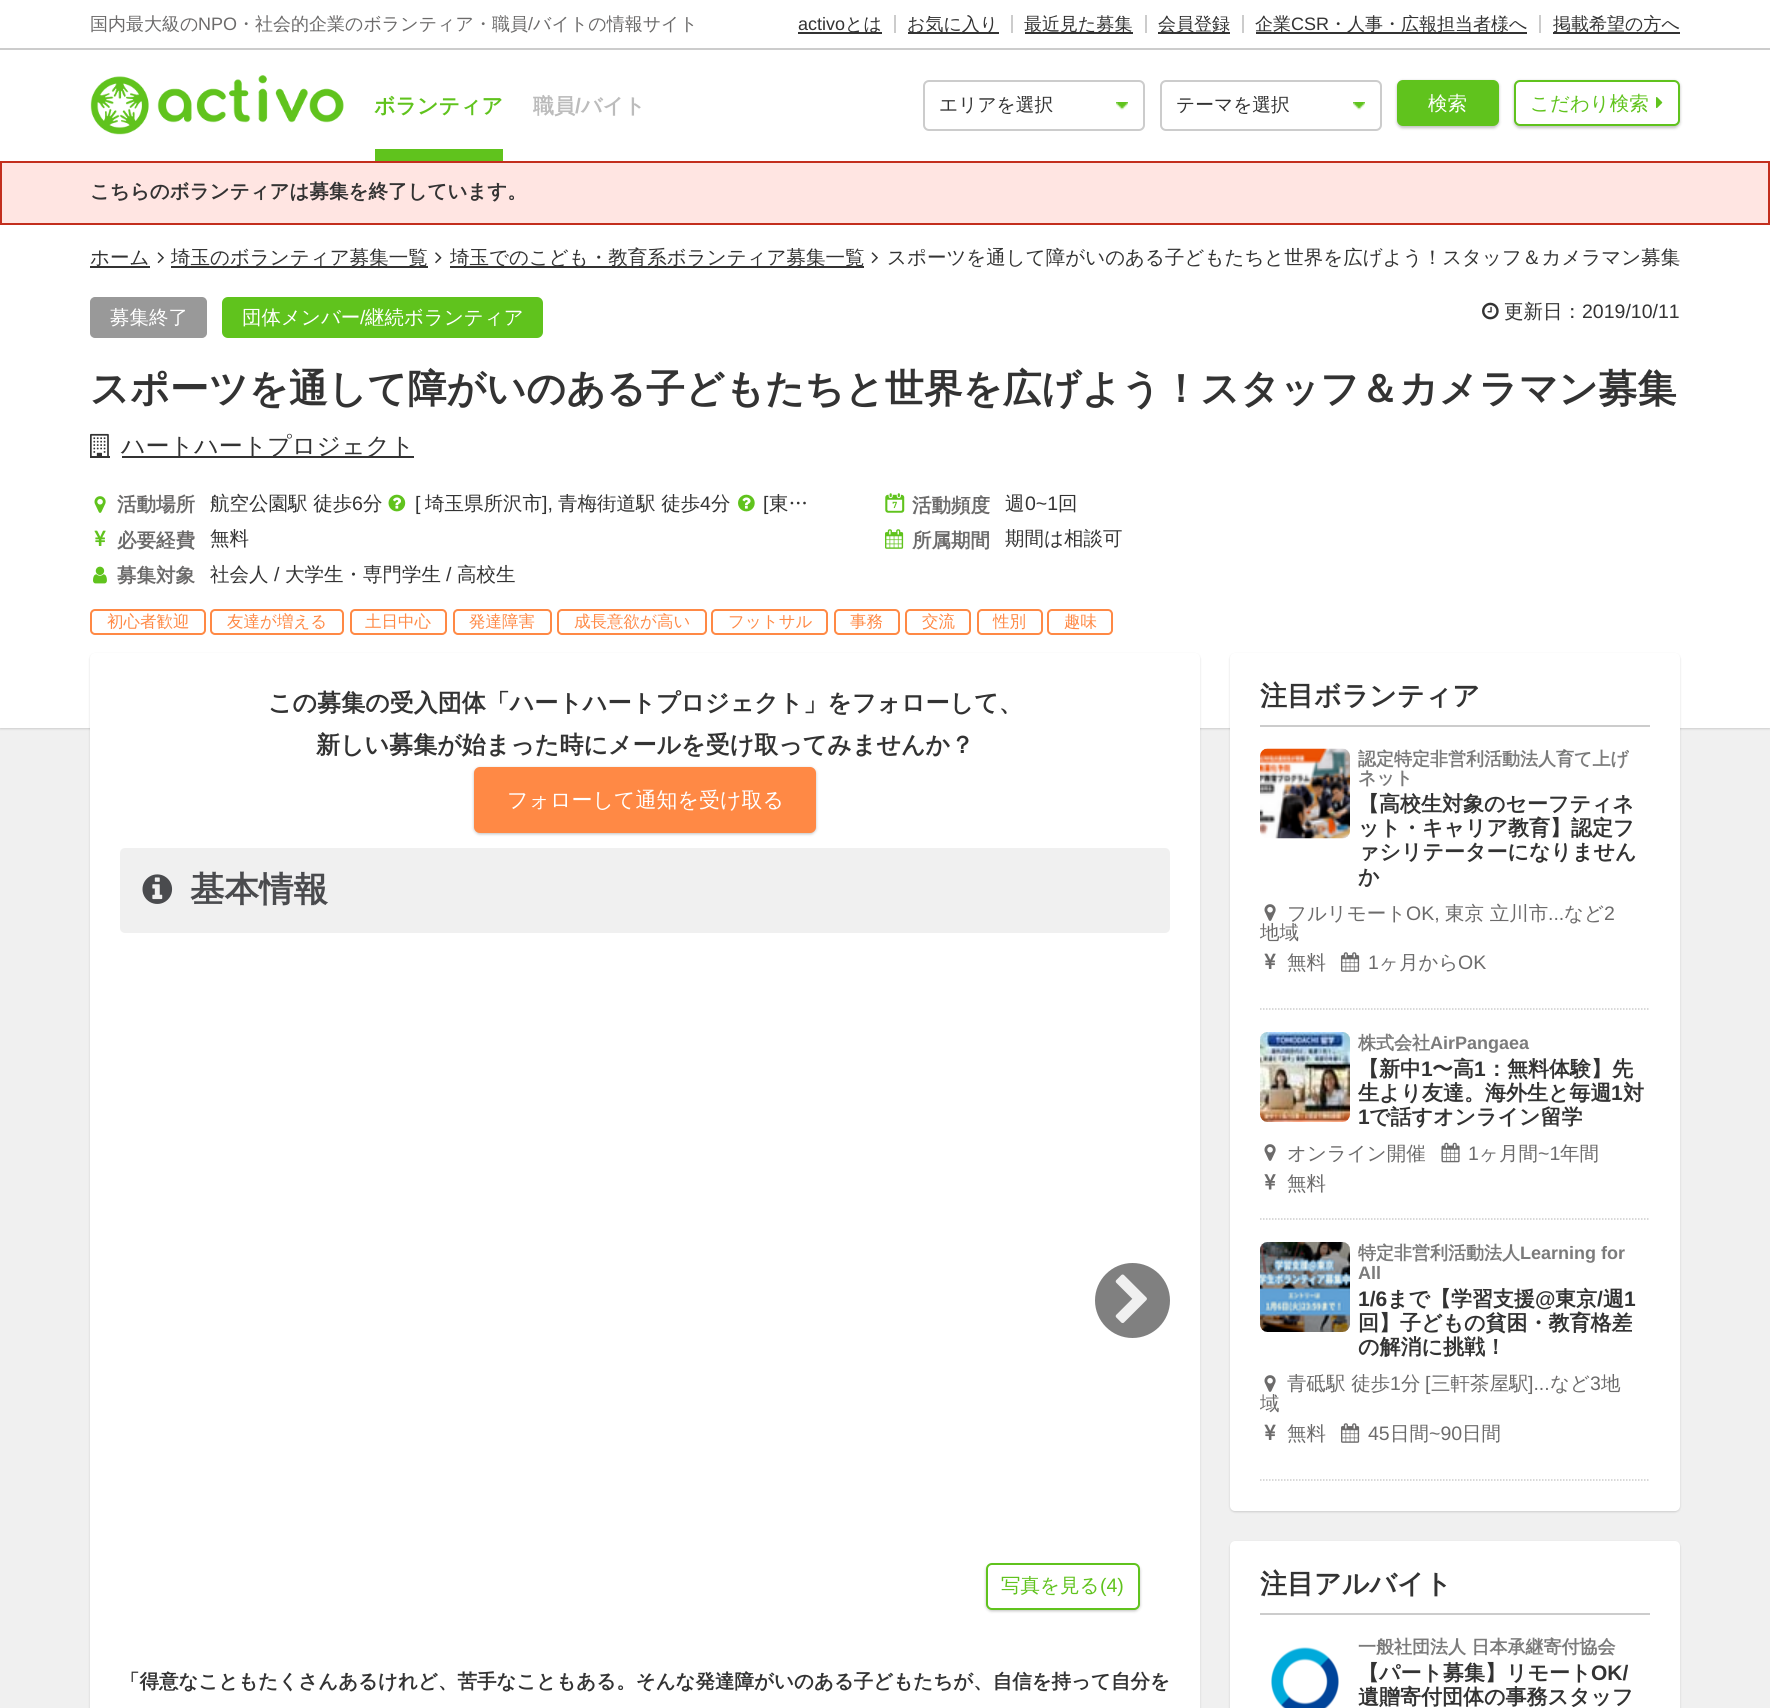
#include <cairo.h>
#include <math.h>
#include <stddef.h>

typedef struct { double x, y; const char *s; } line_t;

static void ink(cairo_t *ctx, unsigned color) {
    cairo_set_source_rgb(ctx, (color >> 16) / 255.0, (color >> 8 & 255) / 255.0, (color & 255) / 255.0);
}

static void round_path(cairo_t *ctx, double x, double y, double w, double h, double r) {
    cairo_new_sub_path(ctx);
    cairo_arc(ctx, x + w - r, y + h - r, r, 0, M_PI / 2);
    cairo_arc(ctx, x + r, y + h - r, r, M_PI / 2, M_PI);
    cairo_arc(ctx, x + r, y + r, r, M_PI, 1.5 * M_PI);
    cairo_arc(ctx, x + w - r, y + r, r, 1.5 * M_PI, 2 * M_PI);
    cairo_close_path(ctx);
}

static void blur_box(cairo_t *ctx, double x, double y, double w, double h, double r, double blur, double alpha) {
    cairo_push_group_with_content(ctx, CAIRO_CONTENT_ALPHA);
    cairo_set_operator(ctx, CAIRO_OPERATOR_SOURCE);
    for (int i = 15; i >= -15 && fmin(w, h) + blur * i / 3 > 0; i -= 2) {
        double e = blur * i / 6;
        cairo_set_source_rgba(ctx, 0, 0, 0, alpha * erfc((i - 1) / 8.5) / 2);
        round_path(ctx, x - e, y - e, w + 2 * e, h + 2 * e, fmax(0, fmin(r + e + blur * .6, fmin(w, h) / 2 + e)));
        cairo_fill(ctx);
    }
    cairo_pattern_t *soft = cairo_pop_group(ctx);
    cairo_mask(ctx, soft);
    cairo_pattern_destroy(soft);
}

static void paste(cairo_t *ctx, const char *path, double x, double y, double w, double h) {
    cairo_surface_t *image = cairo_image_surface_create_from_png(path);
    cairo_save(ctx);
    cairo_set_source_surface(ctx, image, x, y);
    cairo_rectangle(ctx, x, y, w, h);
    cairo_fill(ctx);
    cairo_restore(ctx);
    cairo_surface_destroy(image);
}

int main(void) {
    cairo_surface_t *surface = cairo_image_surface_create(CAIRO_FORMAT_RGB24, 1770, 1708);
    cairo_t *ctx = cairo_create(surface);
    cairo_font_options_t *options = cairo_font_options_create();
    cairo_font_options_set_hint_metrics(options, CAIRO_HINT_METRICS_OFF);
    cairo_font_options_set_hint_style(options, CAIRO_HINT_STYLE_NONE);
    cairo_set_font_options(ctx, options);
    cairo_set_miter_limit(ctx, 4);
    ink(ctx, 0xF0F0F0);
    cairo_paint(ctx);
    ink(ctx, 0xFFFFFF);
    cairo_rectangle(ctx, 0, 0, 1770, 161);
    cairo_fill(ctx);
    ink(ctx, 0xCCCCCC);
    cairo_rectangle(ctx, 0, 48, 1770, 2);
    cairo_fill(ctx);
    cairo_select_font_face(ctx, "WenQuanYi Zen Hei Medium", CAIRO_FONT_SLANT_NORMAL, CAIRO_FONT_WEIGHT_NORMAL);
    cairo_set_font_size(ctx, 18);
    ink(ctx, 0x6C6B6B);
    cairo_move_to(ctx, 90, 30);
    cairo_show_text(ctx, "国内最大級の");
    cairo_select_font_face(ctx, "Liberation Sans", CAIRO_FONT_SLANT_NORMAL, CAIRO_FONT_WEIGHT_NORMAL);
    cairo_move_to(ctx, 198, 30);
    cairo_show_text(ctx, "NPO");
    cairo_select_font_face(ctx, "WenQuanYi Zen Hei Medium", CAIRO_FONT_SLANT_NORMAL, CAIRO_FONT_WEIGHT_NORMAL);
    cairo_move_to(ctx, 237, 30);
    cairo_show_text(ctx, "・社会的企業のボランティア・職員");
    cairo_select_font_face(ctx, "Liberation Sans", CAIRO_FONT_SLANT_NORMAL, CAIRO_FONT_WEIGHT_NORMAL);
    cairo_move_to(ctx, 528, 30);
    cairo_show_text(ctx, "/");
    cairo_select_font_face(ctx, "WenQuanYi Zen Hei Medium", CAIRO_FONT_SLANT_NORMAL, CAIRO_FONT_WEIGHT_NORMAL);
    cairo_move_to(ctx, 533, 30);
    cairo_show_text(ctx, "バイトの情報サイト");
    ink(ctx, 0xCCCCCC);
    cairo_rectangle(ctx, 894, 15, 2, 18);
    cairo_fill(ctx);
    cairo_select_font_face(ctx, "Liberation Sans", CAIRO_FONT_SLANT_NORMAL, CAIRO_FONT_WEIGHT_NORMAL);
    ink(ctx, 0x333333);
    cairo_move_to(ctx, 798, 30);
    cairo_show_text(ctx, "activo");
    cairo_rectangle(ctx, 798, 32, 84, 2);
    cairo_fill(ctx);
    cairo_select_font_face(ctx, "WenQuanYi Zen Hei Medium", CAIRO_FONT_SLANT_NORMAL, CAIRO_FONT_WEIGHT_NORMAL);
    cairo_move_to(ctx, 845, 30);
    cairo_show_text(ctx, "とは");
    ink(ctx, 0xCCCCCC);
    cairo_rectangle(ctx, 1011, 15, 2, 18);
    cairo_fill(ctx);
    ink(ctx, 0x333333);
    cairo_rectangle(ctx, 908, 32, 91, 2);
    cairo_fill(ctx);
    cairo_move_to(ctx, 907, 30);
    cairo_show_text(ctx, "お気に入り");
    ink(ctx, 0xCCCCCC);
    cairo_rectangle(ctx, 1145, 15, 2, 18);
    cairo_fill(ctx);
    ink(ctx, 0x333333);
    cairo_rectangle(ctx, 1025, 32, 108, 2);
    cairo_fill(ctx);
    cairo_move_to(ctx, 1024, 30);
    cairo_show_text(ctx, "最近見た募集");
    ink(ctx, 0xCCCCCC);
    cairo_rectangle(ctx, 1242, 15, 2, 18);
    cairo_fill(ctx);
    ink(ctx, 0x333333);
    cairo_rectangle(ctx, 1158, 32, 72, 2);
    cairo_fill(ctx);
    cairo_move_to(ctx, 1158, 30);
    cairo_show_text(ctx, "会員登録");
    ink(ctx, 0xCCCCCC);
    cairo_rectangle(ctx, 1539, 15, 2, 18);
    cairo_fill(ctx);
    ink(ctx, 0x333333);
    cairo_rectangle(ctx, 1256, 32, 271, 2);
    cairo_fill(ctx);
    cairo_move_to(ctx, 1255, 30);
    cairo_show_text(ctx, "企業");
    cairo_select_font_face(ctx, "Liberation Sans", CAIRO_FONT_SLANT_NORMAL, CAIRO_FONT_WEIGHT_NORMAL);
    cairo_move_to(ctx, 1291, 30);
    cairo_show_text(ctx, "CSR");
    cairo_select_font_face(ctx, "WenQuanYi Zen Hei Medium", CAIRO_FONT_SLANT_NORMAL, CAIRO_FONT_WEIGHT_NORMAL);
    cairo_move_to(ctx, 1329, 30);
    cairo_show_text(ctx, "・人事・広報担当者様へ");
    cairo_rectangle(ctx, 1553, 32, 127, 2);
    cairo_fill(ctx);
    cairo_move_to(ctx, 1553, 30);
    cairo_show_text(ctx, "掲載希望の方へ");
    paste(ctx, "media/1.png", 90, 75, 254, 60);
    ink(ctx, 0x60C31D);
    cairo_rectangle(ctx, 375, 149, 128, 12);
    cairo_fill(ctx);
    cairo_select_font_face(ctx, "WenQuanYi Zen Hei", CAIRO_FONT_SLANT_NORMAL, CAIRO_FONT_WEIGHT_BOLD);
    cairo_set_font_size(ctx, 21);
    cairo_move_to(ctx, 374, 113);
    cairo_show_text(ctx, "ボランティア");
    ink(ctx, 0xBCBCBC);
    cairo_move_to(ctx, 533, 113);
    cairo_show_text(ctx, "職員");
    cairo_select_font_face(ctx, "Liberation Sans", CAIRO_FONT_SLANT_NORMAL, CAIRO_FONT_WEIGHT_BOLD);
    cairo_move_to(ctx, 575, 113);
    cairo_show_text(ctx, "/");
    cairo_select_font_face(ctx, "WenQuanYi Zen Hei", CAIRO_FONT_SLANT_NORMAL, CAIRO_FONT_WEIGHT_BOLD);
    cairo_move_to(ctx, 581, 113);
    cairo_show_text(ctx, "バイト");
    paste(ctx, "media/2.png", 1116, 102, 12, 8);
    round_path(ctx, 924, 81, 220, 49, 5);
    ink(ctx, 0xCCCCCC);
    cairo_stroke(ctx);
    cairo_save(ctx);
    cairo_rectangle(ctx, 939, 96, 167, 18);
    cairo_clip(ctx);
    cairo_select_font_face(ctx, "WenQuanYi Zen Hei Medium", CAIRO_FONT_SLANT_NORMAL, CAIRO_FONT_WEIGHT_NORMAL);
    cairo_set_font_size(ctx, 18.75);
    ink(ctx, 0x333333);
    cairo_move_to(ctx, 939, 111);
    cairo_show_text(ctx, "エリアを選択");
    cairo_restore(ctx);
    paste(ctx, "media/2.png", 1353, 102, 12, 8);
    round_path(ctx, 1161, 81, 220, 49, 5);
    cairo_stroke(ctx);
    cairo_save(ctx);
    cairo_rectangle(ctx, 1176, 96, 167, 18);
    cairo_clip(ctx);
    cairo_select_font_face(ctx, "WenQuanYi Zen Hei Medium", CAIRO_FONT_SLANT_NORMAL, CAIRO_FONT_WEIGHT_NORMAL);
    cairo_set_font_size(ctx, 18.75);
    ink(ctx, 0x333333);
    cairo_move_to(ctx, 1176, 111);
    cairo_show_text(ctx, "テーマを選択");
    cairo_restore(ctx);
    ink(ctx, 0x000000);
    blur_box(ctx, 1397, 81, 102, 47, 6, 1.5, 0.25);
    ink(ctx, 0x60C31D);
    round_path(ctx, 1398, 81, 100, 44, 5);
    cairo_fill_preserve(ctx);
    cairo_stroke(ctx);
    cairo_select_font_face(ctx, "WenQuanYi Zen Hei Medium", CAIRO_FONT_SLANT_NORMAL, CAIRO_FONT_WEIGHT_NORMAL);
    cairo_set_font_size(ctx, 19.5);
    ink(ctx, 0xFFFFFF);
    cairo_move_to(ctx, 1428, 110);
    cairo_show_text(ctx, "検索");
    ink(ctx, 0x000000);
    blur_box(ctx, 1514, 81, 166, 47, 6, 1.5, 0.25);
    ink(ctx, 0xFFFFFF);
    round_path(ctx, 1515, 81, 164, 44, 5);
    cairo_fill_preserve(ctx);
    ink(ctx, 0x60C31D);
    cairo_stroke(ctx);
    cairo_move_to(ctx, 1530, 110);
    cairo_show_text(ctx, "こだわり検索");
    paste(ctx, "media/3.png", 1656, 97, 7, 12);
    ink(ctx, 0x000000);
    blur_box(ctx, 0, 227, 1770, 502, 0, 1, 0.15);
    ink(ctx, 0xFFE5E2);
    cairo_rectangle(ctx, 1, 162, 1768, 62);
    cairo_fill_preserve(ctx);
    ink(ctx, 0xC32E1D);
    cairo_stroke(ctx);
    cairo_select_font_face(ctx, "WenQuanYi Zen Hei", CAIRO_FONT_SLANT_NORMAL, CAIRO_FONT_WEIGHT_BOLD);
    ink(ctx, 0x333333);
    cairo_move_to(ctx, 90, 198);
    cairo_show_text(ctx, "こちらのボランティアは募集を終了しています。");
    ink(ctx, 0xFFFFFF);
    cairo_rectangle(ctx, 0, 225, 1770, 503);
    cairo_fill(ctx);
    cairo_select_font_face(ctx, "WenQuanYi Zen Hei Medium", CAIRO_FONT_SLANT_NORMAL, CAIRO_FONT_WEIGHT_NORMAL);
    ink(ctx, 0x333333);
    cairo_move_to(ctx, 90, 264);
    cairo_show_text(ctx, "ホーム");
    cairo_rectangle(ctx, 90, 266, 60, 2);
    cairo_fill(ctx);
    paste(ctx, "media/4.png", 157, 252, 7, 12);
    cairo_rectangle(ctx, 171, 266, 257, 2);
    cairo_fill(ctx);
    cairo_move_to(ctx, 171, 264);
    cairo_show_text(ctx, "埼玉のボランティア募集一覧");
    paste(ctx, "media/5.png", 435, 252, 7, 12);
    cairo_rectangle(ctx, 450, 266, 414, 2);
    cairo_fill(ctx);
    cairo_move_to(ctx, 450, 264);
    cairo_show_text(ctx, "埼玉でのこども・教育系ボランティア募集一覧");
    paste(ctx, "media/4.png", 871, 252, 7, 12);
    cairo_move_to(ctx, 887, 264);
    cairo_show_text(ctx, "スポーツを通して障がいのある子どもたちと世界を広げよう！スタッフ＆カメラマン募集");
    ink(ctx, 0x999999);
    round_path(ctx, 91, 298, 115, 39, 4);
    cairo_fill_preserve(ctx);
    cairo_stroke(ctx);
    ink(ctx, 0xFFFFFF);
    cairo_move_to(ctx, 110, 324);
    cairo_show_text(ctx, "募集終了");
    ink(ctx, 0x60C31D);
    round_path(ctx, 223, 298, 319, 39, 5);
    cairo_fill_preserve(ctx);
    cairo_stroke(ctx);
    ink(ctx, 0xFFFFFF);
    cairo_move_to(ctx, 242, 324);
    cairo_show_text(ctx, "団体メンバー");
    cairo_select_font_face(ctx, "Liberation Sans", CAIRO_FONT_SLANT_NORMAL, CAIRO_FONT_WEIGHT_NORMAL);
    cairo_move_to(ctx, 360, 324);
    cairo_show_text(ctx, "/");
    cairo_select_font_face(ctx, "WenQuanYi Zen Hei Medium", CAIRO_FONT_SLANT_NORMAL, CAIRO_FONT_WEIGHT_NORMAL);
    cairo_move_to(ctx, 365, 324);
    cairo_show_text(ctx, "継続ボランティア");
    paste(ctx, "media/6.png", 1482, 302, 17, 18);
    ink(ctx, 0x333333);
    cairo_move_to(ctx, 1504, 318);
    cairo_show_text(ctx, "更新日：");
    cairo_select_font_face(ctx, "Liberation Sans", CAIRO_FONT_SLANT_NORMAL, CAIRO_FONT_WEIGHT_NORMAL);
    cairo_move_to(ctx, 1582, 318);
    cairo_show_text(ctx, "2019/10/11");
    cairo_select_font_face(ctx, "WenQuanYi Zen Hei", CAIRO_FONT_SLANT_NORMAL, CAIRO_FONT_WEIGHT_BOLD);
    cairo_set_font_size(ctx, 39);
    cairo_move_to(ctx, 90, 402);
    cairo_show_text(ctx, "スポーツを通して障がいのある子どもたちと世界を広げよう！スタッフ＆カメラマン募集");
    paste(ctx, "media/7.png", 90, 433, 19, 23);
    cairo_rectangle(ctx, 122, 456, 292, 2);
    cairo_fill(ctx);
    cairo_select_font_face(ctx, "WenQuanYi Zen Hei Medium", CAIRO_FONT_SLANT_NORMAL, CAIRO_FONT_WEIGHT_NORMAL);
    cairo_set_font_size(ctx, 24);
    cairo_move_to(ctx, 121, 454);
    cairo_show_text(ctx, "ハートハートプロジェクト");
    cairo_rectangle(ctx, 90, 456, 20, 2);
    cairo_fill(ctx);
    paste(ctx, "media/8.png", 94, 496, 12, 17);
    cairo_select_font_face(ctx, "WenQuanYi Zen Hei", CAIRO_FONT_SLANT_NORMAL, CAIRO_FONT_WEIGHT_BOLD);
    cairo_set_font_size(ctx, 19.5);
    ink(ctx, 0x6C6B6B);
    cairo_move_to(ctx, 117, 511);
    cairo_show_text(ctx, "活動場所");
    cairo_select_font_face(ctx, "WenQuanYi Zen Hei Medium", CAIRO_FONT_SLANT_NORMAL, CAIRO_FONT_WEIGHT_NORMAL);
    ink(ctx, 0x333333);
    cairo_move_to(ctx, 210, 510);
    cairo_show_text(ctx, "航空公園駅 徒歩");
    cairo_select_font_face(ctx, "Liberation Sans", CAIRO_FONT_SLANT_NORMAL, CAIRO_FONT_WEIGHT_NORMAL);
    cairo_move_to(ctx, 352, 510);
    cairo_show_text(ctx, "6");
    cairo_select_font_face(ctx, "WenQuanYi Zen Hei Medium", CAIRO_FONT_SLANT_NORMAL, CAIRO_FONT_WEIGHT_NORMAL);
    cairo_move_to(ctx, 363, 510);
    cairo_show_text(ctx, "分");
    paste(ctx, "media/9.png", 388, 494, 18, 18);
    cairo_select_font_face(ctx, "Liberation Sans", CAIRO_FONT_SLANT_NORMAL, CAIRO_FONT_WEIGHT_NORMAL);
    cairo_move_to(ctx, 415, 510);
    cairo_show_text(ctx, "[");
    cairo_select_font_face(ctx, "WenQuanYi Zen Hei Medium", CAIRO_FONT_SLANT_NORMAL, CAIRO_FONT_WEIGHT_NORMAL);
    cairo_move_to(ctx, 425, 510);
    cairo_show_text(ctx, "埼玉県所沢市");
    cairo_select_font_face(ctx, "Liberation Sans", CAIRO_FONT_SLANT_NORMAL, CAIRO_FONT_WEIGHT_NORMAL);
    cairo_move_to(ctx, 542, 510);
    cairo_show_text(ctx, "],");
    cairo_select_font_face(ctx, "WenQuanYi Zen Hei Medium", CAIRO_FONT_SLANT_NORMAL, CAIRO_FONT_WEIGHT_NORMAL);
    cairo_move_to(ctx, 558, 510);
    cairo_show_text(ctx, "青梅街道駅 徒歩");
    cairo_select_font_face(ctx, "Liberation Sans", CAIRO_FONT_SLANT_NORMAL, CAIRO_FONT_WEIGHT_NORMAL);
    cairo_move_to(ctx, 700, 510);
    cairo_show_text(ctx, "4");
    cairo_select_font_face(ctx, "WenQuanYi Zen Hei Medium", CAIRO_FONT_SLANT_NORMAL, CAIRO_FONT_WEIGHT_NORMAL);
    cairo_move_to(ctx, 711, 510);
    cairo_show_text(ctx, "分");
    paste(ctx, "media/10.png", 738, 494, 17, 18);
    cairo_select_font_face(ctx, "Liberation Sans", CAIRO_FONT_SLANT_NORMAL, CAIRO_FONT_WEIGHT_NORMAL);
    cairo_move_to(ctx, 763, 510);
    cairo_show_text(ctx, "[");
    cairo_select_font_face(ctx, "WenQuanYi Zen Hei Medium", CAIRO_FONT_SLANT_NORMAL, CAIRO_FONT_WEIGHT_NORMAL);
    cairo_move_to(ctx, 769, 510);
    cairo_show_text(ctx, "東…");
    paste(ctx, "media/11.png", 885, 493, 20, 20);
    cairo_select_font_face(ctx, "WenQuanYi Zen Hei", CAIRO_FONT_SLANT_NORMAL, CAIRO_FONT_WEIGHT_BOLD);
    ink(ctx, 0x6C6B6B);
    cairo_move_to(ctx, 912, 512);
    cairo_show_text(ctx, "活動頻度");
    cairo_select_font_face(ctx, "WenQuanYi Zen Hei Medium", CAIRO_FONT_SLANT_NORMAL, CAIRO_FONT_WEIGHT_NORMAL);
    ink(ctx, 0x333333);
    cairo_move_to(ctx, 1005, 510);
    cairo_show_text(ctx, "週");
    cairo_select_font_face(ctx, "Liberation Sans", CAIRO_FONT_SLANT_NORMAL, CAIRO_FONT_WEIGHT_NORMAL);
    cairo_move_to(ctx, 1025, 510);
    cairo_show_text(ctx, "0~1");
    cairo_select_font_face(ctx, "WenQuanYi Zen Hei Medium", CAIRO_FONT_SLANT_NORMAL, CAIRO_FONT_WEIGHT_NORMAL);
    cairo_move_to(ctx, 1058, 510);
    cairo_show_text(ctx, "回");
    paste(ctx, "media/12.png", 94, 530, 12, 16);
    cairo_select_font_face(ctx, "WenQuanYi Zen Hei", CAIRO_FONT_SLANT_NORMAL, CAIRO_FONT_WEIGHT_BOLD);
    ink(ctx, 0x6C6B6B);
    cairo_move_to(ctx, 117, 547);
    cairo_show_text(ctx, "必要経費");
    cairo_select_font_face(ctx, "WenQuanYi Zen Hei Medium", CAIRO_FONT_SLANT_NORMAL, CAIRO_FONT_WEIGHT_NORMAL);
    ink(ctx, 0x333333);
    cairo_move_to(ctx, 210, 545);
    cairo_show_text(ctx, "無料");
    paste(ctx, "media/13.png", 885, 529, 19, 20);
    cairo_select_font_face(ctx, "WenQuanYi Zen Hei", CAIRO_FONT_SLANT_NORMAL, CAIRO_FONT_WEIGHT_BOLD);
    ink(ctx, 0x6C6B6B);
    cairo_move_to(ctx, 912, 547);
    cairo_show_text(ctx, "所属期間");
    cairo_select_font_face(ctx, "WenQuanYi Zen Hei Medium", CAIRO_FONT_SLANT_NORMAL, CAIRO_FONT_WEIGHT_NORMAL);
    ink(ctx, 0x333333);
    cairo_move_to(ctx, 1005, 545);
    cairo_show_text(ctx, "期間は相談可");
    paste(ctx, "media/14.png", 93, 566, 14, 18);
    cairo_select_font_face(ctx, "WenQuanYi Zen Hei", CAIRO_FONT_SLANT_NORMAL, CAIRO_FONT_WEIGHT_BOLD);
    ink(ctx, 0x6C6B6B);
    cairo_move_to(ctx, 117, 582);
    cairo_show_text(ctx, "募集対象");
    cairo_select_font_face(ctx, "WenQuanYi Zen Hei Medium", CAIRO_FONT_SLANT_NORMAL, CAIRO_FONT_WEIGHT_NORMAL);
    ink(ctx, 0x333333);
    cairo_move_to(ctx, 210, 581);
    cairo_show_text(ctx, "社会人");
    cairo_select_font_face(ctx, "Liberation Sans", CAIRO_FONT_SLANT_NORMAL, CAIRO_FONT_WEIGHT_NORMAL);
    cairo_move_to(ctx, 274, 581);
    cairo_show_text(ctx, "/");
    cairo_select_font_face(ctx, "WenQuanYi Zen Hei Medium", CAIRO_FONT_SLANT_NORMAL, CAIRO_FONT_WEIGHT_NORMAL);
    cairo_move_to(ctx, 285, 581);
    cairo_show_text(ctx, "大学生・専門学生");
    cairo_select_font_face(ctx, "Liberation Sans", CAIRO_FONT_SLANT_NORMAL, CAIRO_FONT_WEIGHT_NORMAL);
    cairo_move_to(ctx, 446, 581);
    cairo_show_text(ctx, "/");
    cairo_select_font_face(ctx, "WenQuanYi Zen Hei Medium", CAIRO_FONT_SLANT_NORMAL, CAIRO_FONT_WEIGHT_NORMAL);
    cairo_move_to(ctx, 457, 581);
    cairo_show_text(ctx, "高校生");
    round_path(ctx, 91, 610, 114, 24, 4);
    ink(ctx, 0xFF8945);
    cairo_stroke(ctx);
    cairo_set_font_size(ctx, 16.5);
    cairo_move_to(ctx, 107, 627);
    cairo_show_text(ctx, "初心者歓迎");
    round_path(ctx, 211, 610, 132, 24, 4);
    cairo_stroke(ctx);
    cairo_move_to(ctx, 227, 627);
    cairo_show_text(ctx, "友達が増える");
    round_path(ctx, 351, 610, 95, 24, 4);
    cairo_stroke(ctx);
    cairo_move_to(ctx, 365, 627);
    cairo_show_text(ctx, "土日中心");
    round_path(ctx, 454, 610, 97, 24, 4);
    cairo_stroke(ctx);
    cairo_move_to(ctx, 469, 627);
    cairo_show_text(ctx, "発達障害");
    round_path(ctx, 558, 610, 148, 24, 4);
    cairo_stroke(ctx);
    cairo_move_to(ctx, 574, 627);
    cairo_show_text(ctx, "成長意欲が高い");
    round_path(ctx, 712, 610, 115, 24, 4);
    cairo_stroke(ctx);
    cairo_move_to(ctx, 728, 627);
    cairo_show_text(ctx, "フットサル");
    round_path(ctx, 835, 610, 64, 24, 4);
    cairo_stroke(ctx);
    cairo_move_to(ctx, 850, 627);
    cairo_show_text(ctx, "事務");
    round_path(ctx, 906, 610, 64, 24, 4);
    cairo_stroke(ctx);
    cairo_move_to(ctx, 922, 627);
    cairo_show_text(ctx, "交流");
    round_path(ctx, 978, 610, 64, 24, 4);
    cairo_stroke(ctx);
    cairo_move_to(ctx, 993, 627);
    cairo_show_text(ctx, "性別");
    round_path(ctx, 1048, 610, 64, 24, 4);
    cairo_stroke(ctx);
    cairo_move_to(ctx, 1064, 627);
    cairo_show_text(ctx, "趣味");
    ink(ctx, 0x000000);
    blur_box(ctx, 90, 654, 1110, 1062, 5, 1, 0.15);
    ink(ctx, 0xFFFFFF);
    round_path(ctx, 90, 653, 1110, 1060, 5);
    cairo_fill(ctx);
    cairo_select_font_face(ctx, "WenQuanYi Zen Hei", CAIRO_FONT_SLANT_NORMAL, CAIRO_FONT_WEIGHT_BOLD);
    cairo_set_font_size(ctx, 24);
    ink(ctx, 0x333333);
    cairo_move_to(ctx, 268, 711);
    cairo_show_text(ctx, "この募集の受入団体「ハートハートプロジェクト」をフォローして、");
    cairo_move_to(ctx, 316, 753);
    cairo_show_text(ctx, "新しい募集が始まった時にメールを受け取ってみませんか？");
    ink(ctx, 0x000000);
    blur_box(ctx, 474, 768, 342, 66, 6, 1.5, 0.25);
    ink(ctx, 0xFF8945);
    round_path(ctx, 475, 768, 340, 64, 5);
    cairo_fill_preserve(ctx);
    cairo_stroke(ctx);
    cairo_select_font_face(ctx, "WenQuanYi Zen Hei Medium", CAIRO_FONT_SLANT_NORMAL, CAIRO_FONT_WEIGHT_NORMAL);
    cairo_set_font_size(ctx, 21);
    ink(ctx, 0xFFFFFF);
    cairo_move_to(ctx, 507, 807);
    cairo_show_text(ctx, "フォローして通知を受け取る");
    ink(ctx, 0xF0F0F0);
    round_path(ctx, 120, 848, 1050, 85, 5);
    cairo_fill(ctx);
    paste(ctx, "media/15.png", 142, 874, 31, 30);
    cairo_select_font_face(ctx, "WenQuanYi Zen Hei", CAIRO_FONT_SLANT_NORMAL, CAIRO_FONT_WEIGHT_BOLD);
    cairo_set_font_size(ctx, 34.5);
    ink(ctx, 0x4A4B4E);
    cairo_move_to(ctx, 190, 901);
    cairo_show_text(ctx, "基本情報");
    ink(ctx, 0x808080);
    cairo_new_path(ctx);
    cairo_arc(ctx, 1132.5, 1300.5, 37.5, 0, 2 * M_PI);
    cairo_fill(ctx);
    paste(ctx, "media/16.png", 1115, 1274, 32, 49);
    ink(ctx, 0x000000);
    blur_box(ctx, 986, 1565, 154, 46, 6, 1.5, 0.25);
    ink(ctx, 0xFFFFFF);
    round_path(ctx, 987, 1564, 152, 45, 5);
    cairo_fill_preserve(ctx);
    ink(ctx, 0x60C31D);
    cairo_stroke(ctx);
    cairo_select_font_face(ctx, "WenQuanYi Zen Hei Medium", CAIRO_FONT_SLANT_NORMAL, CAIRO_FONT_WEIGHT_NORMAL);
    cairo_set_font_size(ctx, 19.5);
    cairo_move_to(ctx, 1001, 1592);
    cairo_show_text(ctx, "写真を見る");
    cairo_select_font_face(ctx, "Liberation Sans", CAIRO_FONT_SLANT_NORMAL, CAIRO_FONT_WEIGHT_NORMAL);
    cairo_move_to(ctx, 1100, 1592);
    cairo_show_text(ctx, "(4)");
    cairo_select_font_face(ctx, "WenQuanYi Zen Hei", CAIRO_FONT_SLANT_NORMAL, CAIRO_FONT_WEIGHT_BOLD);
    ink(ctx, 0x333333);
    cairo_move_to(ctx, 120, 1688);
    cairo_show_text(ctx, "「得意なこともたくさんあるけれど、苦手なこともある。そんな発達障がいのある子どもたちが、自信を持って自分を");
    ink(ctx, 0x000000);
    blur_box(ctx, 1230, 654, 450, 858, 5, 1, 0.15);
    ink(ctx, 0xFFFFFF);
    round_path(ctx, 1230, 653, 450, 858, 5);
    cairo_fill(ctx);
    ink(ctx, 0xCCCCCC);
    cairo_rectangle(ctx, 1260, 725, 390, 2);
    cairo_fill(ctx);
    cairo_set_font_size(ctx, 27);
    ink(ctx, 0x333333);
    cairo_move_to(ctx, 1260, 705);
    cairo_show_text(ctx, "注目ボランティア");
    cairo_new_path(ctx);
    cairo_move_to(ctx, 1260, 1009);
    cairo_line_to(ctx, 1650, 1009);
    ink(ctx, 0xCCCCCC);
    cairo_set_line_width(ctx, 1.5);
    cairo_set_dash(ctx, (double[]){1.5, 1.5}, 2, 0);
    cairo_stroke(ctx);
    paste(ctx, "media/17.png", 1260, 748, 90, 91);
    cairo_set_font_size(ctx, 18);
    ink(ctx, 0x7B7B7B);
    cairo_move_to(ctx, 1358, 765);
    cairo_show_text(ctx, "認定特定非営利活動法人育て上げ");
    cairo_move_to(ctx, 1358, 784);
    cairo_show_text(ctx, "ネット");
    cairo_set_font_size(ctx, 21);
    ink(ctx, 0x333333);
    {
        static const line_t items[] = {
            {1358, 811, "【高校生対象のセーフティネ"},
            {1358, 835, "ット・キャリア教育】認定フ"},
            {1358, 859, "ァシリテーターになりません"},
            {1358, 884, "か"},
        };
        for (size_t i = 0; i < sizeof items / sizeof *items; i++) {
            cairo_move_to(ctx, items[i].x, items[i].y);
            cairo_show_text(ctx, items[i].s);
        }
    }
    paste(ctx, "media/18.png", 1264, 904, 12, 17);
    cairo_select_font_face(ctx, "WenQuanYi Zen Hei Medium", CAIRO_FONT_SLANT_NORMAL, CAIRO_FONT_WEIGHT_NORMAL);
    cairo_set_font_size(ctx, 19.5);
    ink(ctx, 0x6C6B6B);
    cairo_move_to(ctx, 1287, 920);
    cairo_show_text(ctx, "フルリモート");
    cairo_select_font_face(ctx, "Liberation Sans", CAIRO_FONT_SLANT_NORMAL, CAIRO_FONT_WEIGHT_NORMAL);
    cairo_move_to(ctx, 1406, 920);
    cairo_show_text(ctx, "OK,");
    cairo_select_font_face(ctx, "WenQuanYi Zen Hei Medium", CAIRO_FONT_SLANT_NORMAL, CAIRO_FONT_WEIGHT_NORMAL);
    cairo_move_to(ctx, 1445, 920);
    cairo_show_text(ctx, "東京 立川市");
    cairo_select_font_face(ctx, "Liberation Sans", CAIRO_FONT_SLANT_NORMAL, CAIRO_FONT_WEIGHT_NORMAL);
    cairo_move_to(ctx, 1548, 920);
    cairo_show_text(ctx, "...");
    cairo_select_font_face(ctx, "WenQuanYi Zen Hei Medium", CAIRO_FONT_SLANT_NORMAL, CAIRO_FONT_WEIGHT_NORMAL);
    cairo_move_to(ctx, 1564, 920);
    cairo_show_text(ctx, "など");
    cairo_select_font_face(ctx, "Liberation Sans", CAIRO_FONT_SLANT_NORMAL, CAIRO_FONT_WEIGHT_NORMAL);
    cairo_move_to(ctx, 1604, 920);
    cairo_show_text(ctx, "2");
    cairo_select_font_face(ctx, "WenQuanYi Zen Hei Medium", CAIRO_FONT_SLANT_NORMAL, CAIRO_FONT_WEIGHT_NORMAL);
    cairo_move_to(ctx, 1260, 939);
    cairo_show_text(ctx, "地域");
    paste(ctx, "media/19.png", 1264, 953, 12, 16);
    cairo_move_to(ctx, 1287, 969);
    cairo_show_text(ctx, "無料");
    paste(ctx, "media/20.png", 1341, 952, 19, 20);
    cairo_select_font_face(ctx, "Liberation Sans", CAIRO_FONT_SLANT_NORMAL, CAIRO_FONT_WEIGHT_NORMAL);
    cairo_move_to(ctx, 1368, 969);
    cairo_show_text(ctx, "1");
    cairo_select_font_face(ctx, "WenQuanYi Zen Hei Medium", CAIRO_FONT_SLANT_NORMAL, CAIRO_FONT_WEIGHT_NORMAL);
    cairo_move_to(ctx, 1379, 969);
    cairo_show_text(ctx, "ヶ月から");
    cairo_select_font_face(ctx, "Liberation Sans", CAIRO_FONT_SLANT_NORMAL, CAIRO_FONT_WEIGHT_NORMAL);
    cairo_move_to(ctx, 1458, 969);
    cairo_show_text(ctx, "OK");
    cairo_new_path(ctx);
    cairo_move_to(ctx, 1260, 1219);
    cairo_line_to(ctx, 1650, 1219);
    ink(ctx, 0xCCCCCC);
    cairo_stroke(ctx);
    paste(ctx, "media/21.png", 1260, 1032, 90, 90);
    cairo_select_font_face(ctx, "WenQuanYi Zen Hei", CAIRO_FONT_SLANT_NORMAL, CAIRO_FONT_WEIGHT_BOLD);
    cairo_set_font_size(ctx, 18);
    ink(ctx, 0x7B7B7B);
    cairo_move_to(ctx, 1358, 1049);
    cairo_show_text(ctx, "株式会社");
    cairo_select_font_face(ctx, "Liberation Sans", CAIRO_FONT_SLANT_NORMAL, CAIRO_FONT_WEIGHT_BOLD);
    cairo_move_to(ctx, 1430, 1049);
    cairo_show_text(ctx, "AirPangaea");
    cairo_select_font_face(ctx, "WenQuanYi Zen Hei", CAIRO_FONT_SLANT_NORMAL, CAIRO_FONT_WEIGHT_BOLD);
    cairo_set_font_size(ctx, 21);
    ink(ctx, 0x333333);
    cairo_move_to(ctx, 1358, 1076);
    cairo_show_text(ctx, "【新中");
    cairo_select_font_face(ctx, "Liberation Sans", CAIRO_FONT_SLANT_NORMAL, CAIRO_FONT_WEIGHT_BOLD);
    cairo_move_to(ctx, 1421, 1076);
    cairo_show_text(ctx, "1");
    cairo_select_font_face(ctx, "WenQuanYi Zen Hei", CAIRO_FONT_SLANT_NORMAL, CAIRO_FONT_WEIGHT_BOLD);
    cairo_move_to(ctx, 1432, 1076);
    cairo_show_text(ctx, "〜高");
    cairo_select_font_face(ctx, "Liberation Sans", CAIRO_FONT_SLANT_NORMAL, CAIRO_FONT_WEIGHT_BOLD);
    cairo_move_to(ctx, 1474, 1076);
    cairo_show_text(ctx, "1");
    cairo_select_font_face(ctx, "WenQuanYi Zen Hei", CAIRO_FONT_SLANT_NORMAL, CAIRO_FONT_WEIGHT_BOLD);
    cairo_move_to(ctx, 1486, 1076);
    cairo_show_text(ctx, "：無料体験】先");
    cairo_move_to(ctx, 1358, 1100);
    cairo_show_text(ctx, "生より友達。海外生と毎週");
    cairo_select_font_face(ctx, "Liberation Sans", CAIRO_FONT_SLANT_NORMAL, CAIRO_FONT_WEIGHT_BOLD);
    cairo_move_to(ctx, 1611, 1100);
    cairo_show_text(ctx, "1");
    cairo_select_font_face(ctx, "WenQuanYi Zen Hei", CAIRO_FONT_SLANT_NORMAL, CAIRO_FONT_WEIGHT_BOLD);
    cairo_move_to(ctx, 1623, 1100);
    cairo_show_text(ctx, "対");
    cairo_select_font_face(ctx, "Liberation Sans", CAIRO_FONT_SLANT_NORMAL, CAIRO_FONT_WEIGHT_BOLD);
    cairo_move_to(ctx, 1358, 1124);
    cairo_show_text(ctx, "1");
    cairo_select_font_face(ctx, "WenQuanYi Zen Hei", CAIRO_FONT_SLANT_NORMAL, CAIRO_FONT_WEIGHT_BOLD);
    cairo_move_to(ctx, 1369, 1124);
    cairo_show_text(ctx, "で話すオンライン留学");
    paste(ctx, "media/18.png", 1264, 1144, 12, 17);
    cairo_select_font_face(ctx, "WenQuanYi Zen Hei Medium", CAIRO_FONT_SLANT_NORMAL, CAIRO_FONT_WEIGHT_NORMAL);
    cairo_set_font_size(ctx, 19.5);
    ink(ctx, 0x6C6B6B);
    cairo_move_to(ctx, 1287, 1160);
    cairo_show_text(ctx, "オンライン開催");
    paste(ctx, "media/22.png", 1441, 1142, 19, 21);
    cairo_select_font_face(ctx, "Liberation Sans", CAIRO_FONT_SLANT_NORMAL, CAIRO_FONT_WEIGHT_NORMAL);
    cairo_move_to(ctx, 1468, 1160);
    cairo_show_text(ctx, "1");
    cairo_select_font_face(ctx, "WenQuanYi Zen Hei Medium", CAIRO_FONT_SLANT_NORMAL, CAIRO_FONT_WEIGHT_NORMAL);
    cairo_move_to(ctx, 1479, 1160);
    cairo_show_text(ctx, "ヶ月間");
    cairo_select_font_face(ctx, "Liberation Sans", CAIRO_FONT_SLANT_NORMAL, CAIRO_FONT_WEIGHT_NORMAL);
    cairo_move_to(ctx, 1538, 1160);
    cairo_show_text(ctx, "~1");
    cairo_select_font_face(ctx, "WenQuanYi Zen Hei Medium", CAIRO_FONT_SLANT_NORMAL, CAIRO_FONT_WEIGHT_NORMAL);
    cairo_move_to(ctx, 1560, 1160);
    cairo_show_text(ctx, "年間");
    paste(ctx, "media/23.png", 1264, 1174, 12, 16);
    cairo_move_to(ctx, 1287, 1190);
    cairo_show_text(ctx, "無料");
    cairo_new_path(ctx);
    cairo_move_to(ctx, 1260, 1480);
    cairo_line_to(ctx, 1650, 1480);
    ink(ctx, 0xCCCCCC);
    cairo_stroke(ctx);
    paste(ctx, "media/24.png", 1260, 1242, 90, 90);
    cairo_select_font_face(ctx, "WenQuanYi Zen Hei", CAIRO_FONT_SLANT_NORMAL, CAIRO_FONT_WEIGHT_BOLD);
    cairo_set_font_size(ctx, 18);
    ink(ctx, 0x7B7B7B);
    cairo_move_to(ctx, 1358, 1259);
    cairo_show_text(ctx, "特定非営利活動法人");
    cairo_select_font_face(ctx, "Liberation Sans", CAIRO_FONT_SLANT_NORMAL, CAIRO_FONT_WEIGHT_BOLD);
    cairo_move_to(ctx, 1520, 1259);
    cairo_show_text(ctx, "Learning for");
    cairo_move_to(ctx, 1358, 1279);
    cairo_show_text(ctx, "All");
    cairo_set_font_size(ctx, 21);
    ink(ctx, 0x333333);
    cairo_move_to(ctx, 1358, 1306);
    cairo_show_text(ctx, "1/6");
    cairo_select_font_face(ctx, "WenQuanYi Zen Hei", CAIRO_FONT_SLANT_NORMAL, CAIRO_FONT_WEIGHT_BOLD);
    cairo_move_to(ctx, 1387, 1306);
    cairo_show_text(ctx, "まで【学習支援");
    cairo_select_font_face(ctx, "Liberation Sans", CAIRO_FONT_SLANT_NORMAL, CAIRO_FONT_WEIGHT_BOLD);
    cairo_move_to(ctx, 1535, 1306);
    cairo_show_text(ctx, "@");
    cairo_select_font_face(ctx, "WenQuanYi Zen Hei", CAIRO_FONT_SLANT_NORMAL, CAIRO_FONT_WEIGHT_BOLD);
    cairo_move_to(ctx, 1555, 1306);
    cairo_show_text(ctx, "東京");
    cairo_select_font_face(ctx, "Liberation Sans", CAIRO_FONT_SLANT_NORMAL, CAIRO_FONT_WEIGHT_BOLD);
    cairo_move_to(ctx, 1597, 1306);
    cairo_show_text(ctx, "/");
    cairo_select_font_face(ctx, "WenQuanYi Zen Hei", CAIRO_FONT_SLANT_NORMAL, CAIRO_FONT_WEIGHT_BOLD);
    cairo_move_to(ctx, 1603, 1306);
    cairo_show_text(ctx, "週");
    cairo_select_font_face(ctx, "Liberation Sans", CAIRO_FONT_SLANT_NORMAL, CAIRO_FONT_WEIGHT_BOLD);
    cairo_move_to(ctx, 1624, 1306);
    cairo_show_text(ctx, "1");
    cairo_select_font_face(ctx, "WenQuanYi Zen Hei", CAIRO_FONT_SLANT_NORMAL, CAIRO_FONT_WEIGHT_BOLD);
    cairo_move_to(ctx, 1358, 1330);
    cairo_show_text(ctx, "回】子どもの貧困・教育格差");
    cairo_move_to(ctx, 1358, 1354);
    cairo_show_text(ctx, "の解消に挑戦！");
    paste(ctx, "media/18.png", 1264, 1375, 12, 17);
    cairo_select_font_face(ctx, "WenQuanYi Zen Hei Medium", CAIRO_FONT_SLANT_NORMAL, CAIRO_FONT_WEIGHT_NORMAL);
    cairo_set_font_size(ctx, 19.5);
    ink(ctx, 0x6C6B6B);
    cairo_move_to(ctx, 1287, 1390);
    cairo_show_text(ctx, "青砥駅 徒歩");
    cairo_select_font_face(ctx, "Liberation Sans", CAIRO_FONT_SLANT_NORMAL, CAIRO_FONT_WEIGHT_NORMAL);
    cairo_move_to(ctx, 1390, 1390);
    cairo_show_text(ctx, "1");
    cairo_select_font_face(ctx, "WenQuanYi Zen Hei Medium", CAIRO_FONT_SLANT_NORMAL, CAIRO_FONT_WEIGHT_NORMAL);
    cairo_move_to(ctx, 1401, 1390);
    cairo_show_text(ctx, "分");
    cairo_select_font_face(ctx, "Liberation Sans", CAIRO_FONT_SLANT_NORMAL, CAIRO_FONT_WEIGHT_NORMAL);
    cairo_move_to(ctx, 1425, 1390);
    cairo_show_text(ctx, "[");
    cairo_select_font_face(ctx, "WenQuanYi Zen Hei Medium", CAIRO_FONT_SLANT_NORMAL, CAIRO_FONT_WEIGHT_NORMAL);
    cairo_move_to(ctx, 1431, 1390);
    cairo_show_text(ctx, "三軒茶屋駅");
    cairo_select_font_face(ctx, "Liberation Sans", CAIRO_FONT_SLANT_NORMAL, CAIRO_FONT_WEIGHT_NORMAL);
    cairo_move_to(ctx, 1528, 1390);
    cairo_show_text(ctx, "]...");
    cairo_select_font_face(ctx, "WenQuanYi Zen Hei Medium", CAIRO_FONT_SLANT_NORMAL, CAIRO_FONT_WEIGHT_NORMAL);
    cairo_move_to(ctx, 1550, 1390);
    cairo_show_text(ctx, "など");
    cairo_select_font_face(ctx, "Liberation Sans", CAIRO_FONT_SLANT_NORMAL, CAIRO_FONT_WEIGHT_NORMAL);
    cairo_move_to(ctx, 1590, 1390);
    cairo_show_text(ctx, "3");
    cairo_select_font_face(ctx, "WenQuanYi Zen Hei Medium", CAIRO_FONT_SLANT_NORMAL, CAIRO_FONT_WEIGHT_NORMAL);
    cairo_move_to(ctx, 1601, 1390);
    cairo_show_text(ctx, "地");
    cairo_move_to(ctx, 1260, 1410);
    cairo_show_text(ctx, "域");
    paste(ctx, "media/19.png", 1264, 1424, 12, 16);
    cairo_move_to(ctx, 1287, 1440);
    cairo_show_text(ctx, "無料");
    paste(ctx, "media/20.png", 1341, 1423, 19, 20);
    cairo_select_font_face(ctx, "Liberation Sans", CAIRO_FONT_SLANT_NORMAL, CAIRO_FONT_WEIGHT_NORMAL);
    cairo_move_to(ctx, 1368, 1440);
    cairo_show_text(ctx, "45");
    cairo_select_font_face(ctx, "WenQuanYi Zen Hei Medium", CAIRO_FONT_SLANT_NORMAL, CAIRO_FONT_WEIGHT_NORMAL);
    cairo_move_to(ctx, 1390, 1440);
    cairo_show_text(ctx, "日間");
    cairo_select_font_face(ctx, "Liberation Sans", CAIRO_FONT_SLANT_NORMAL, CAIRO_FONT_WEIGHT_NORMAL);
    cairo_move_to(ctx, 1429, 1440);
    cairo_show_text(ctx, "~90");
    cairo_select_font_face(ctx, "WenQuanYi Zen Hei Medium", CAIRO_FONT_SLANT_NORMAL, CAIRO_FONT_WEIGHT_NORMAL);
    cairo_move_to(ctx, 1462, 1440);
    cairo_show_text(ctx, "日間");
    ink(ctx, 0x000000);
    blur_box(ctx, 1230, 1542, 450, 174, 5, 1, 0.15);
    ink(ctx, 0xFFFFFF);
    round_path(ctx, 1230, 1541, 450, 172, 5);
    cairo_fill(ctx);
    ink(ctx, 0xCCCCCC);
    cairo_rectangle(ctx, 1260, 1613, 390, 2);
    cairo_fill(ctx);
    cairo_select_font_face(ctx, "WenQuanYi Zen Hei", CAIRO_FONT_SLANT_NORMAL, CAIRO_FONT_WEIGHT_BOLD);
    cairo_set_font_size(ctx, 27);
    ink(ctx, 0x333333);
    cairo_move_to(ctx, 1260, 1593);
    cairo_show_text(ctx, "注目アルバイト");
    paste(ctx, "media/25.png", 1271, 1647, 68, 61);
    cairo_set_font_size(ctx, 18);
    ink(ctx, 0x7B7B7B);
    cairo_move_to(ctx, 1358, 1653);
    cairo_show_text(ctx, "一般社団法人 日本承継寄付協会");
    cairo_set_font_size(ctx, 21);
    ink(ctx, 0x333333);
    cairo_move_to(ctx, 1358, 1680);
    cairo_show_text(ctx, "【パート募集】リモート");
    cairo_select_font_face(ctx, "Liberation Sans", CAIRO_FONT_SLANT_NORMAL, CAIRO_FONT_WEIGHT_BOLD);
    cairo_move_to(ctx, 1591, 1680);
    cairo_show_text(ctx, "OK/");
    cairo_select_font_face(ctx, "WenQuanYi Zen Hei", CAIRO_FONT_SLANT_NORMAL, CAIRO_FONT_WEIGHT_BOLD);
    cairo_move_to(ctx, 1358, 1704);
    cairo_show_text(ctx, "遺贈寄付団体の事務スタッフ");
    cairo_surface_write_to_png(surface, "image.png");
    cairo_font_options_destroy(options);
    cairo_destroy(ctx);
    cairo_surface_destroy(surface);
    return 0;
}
